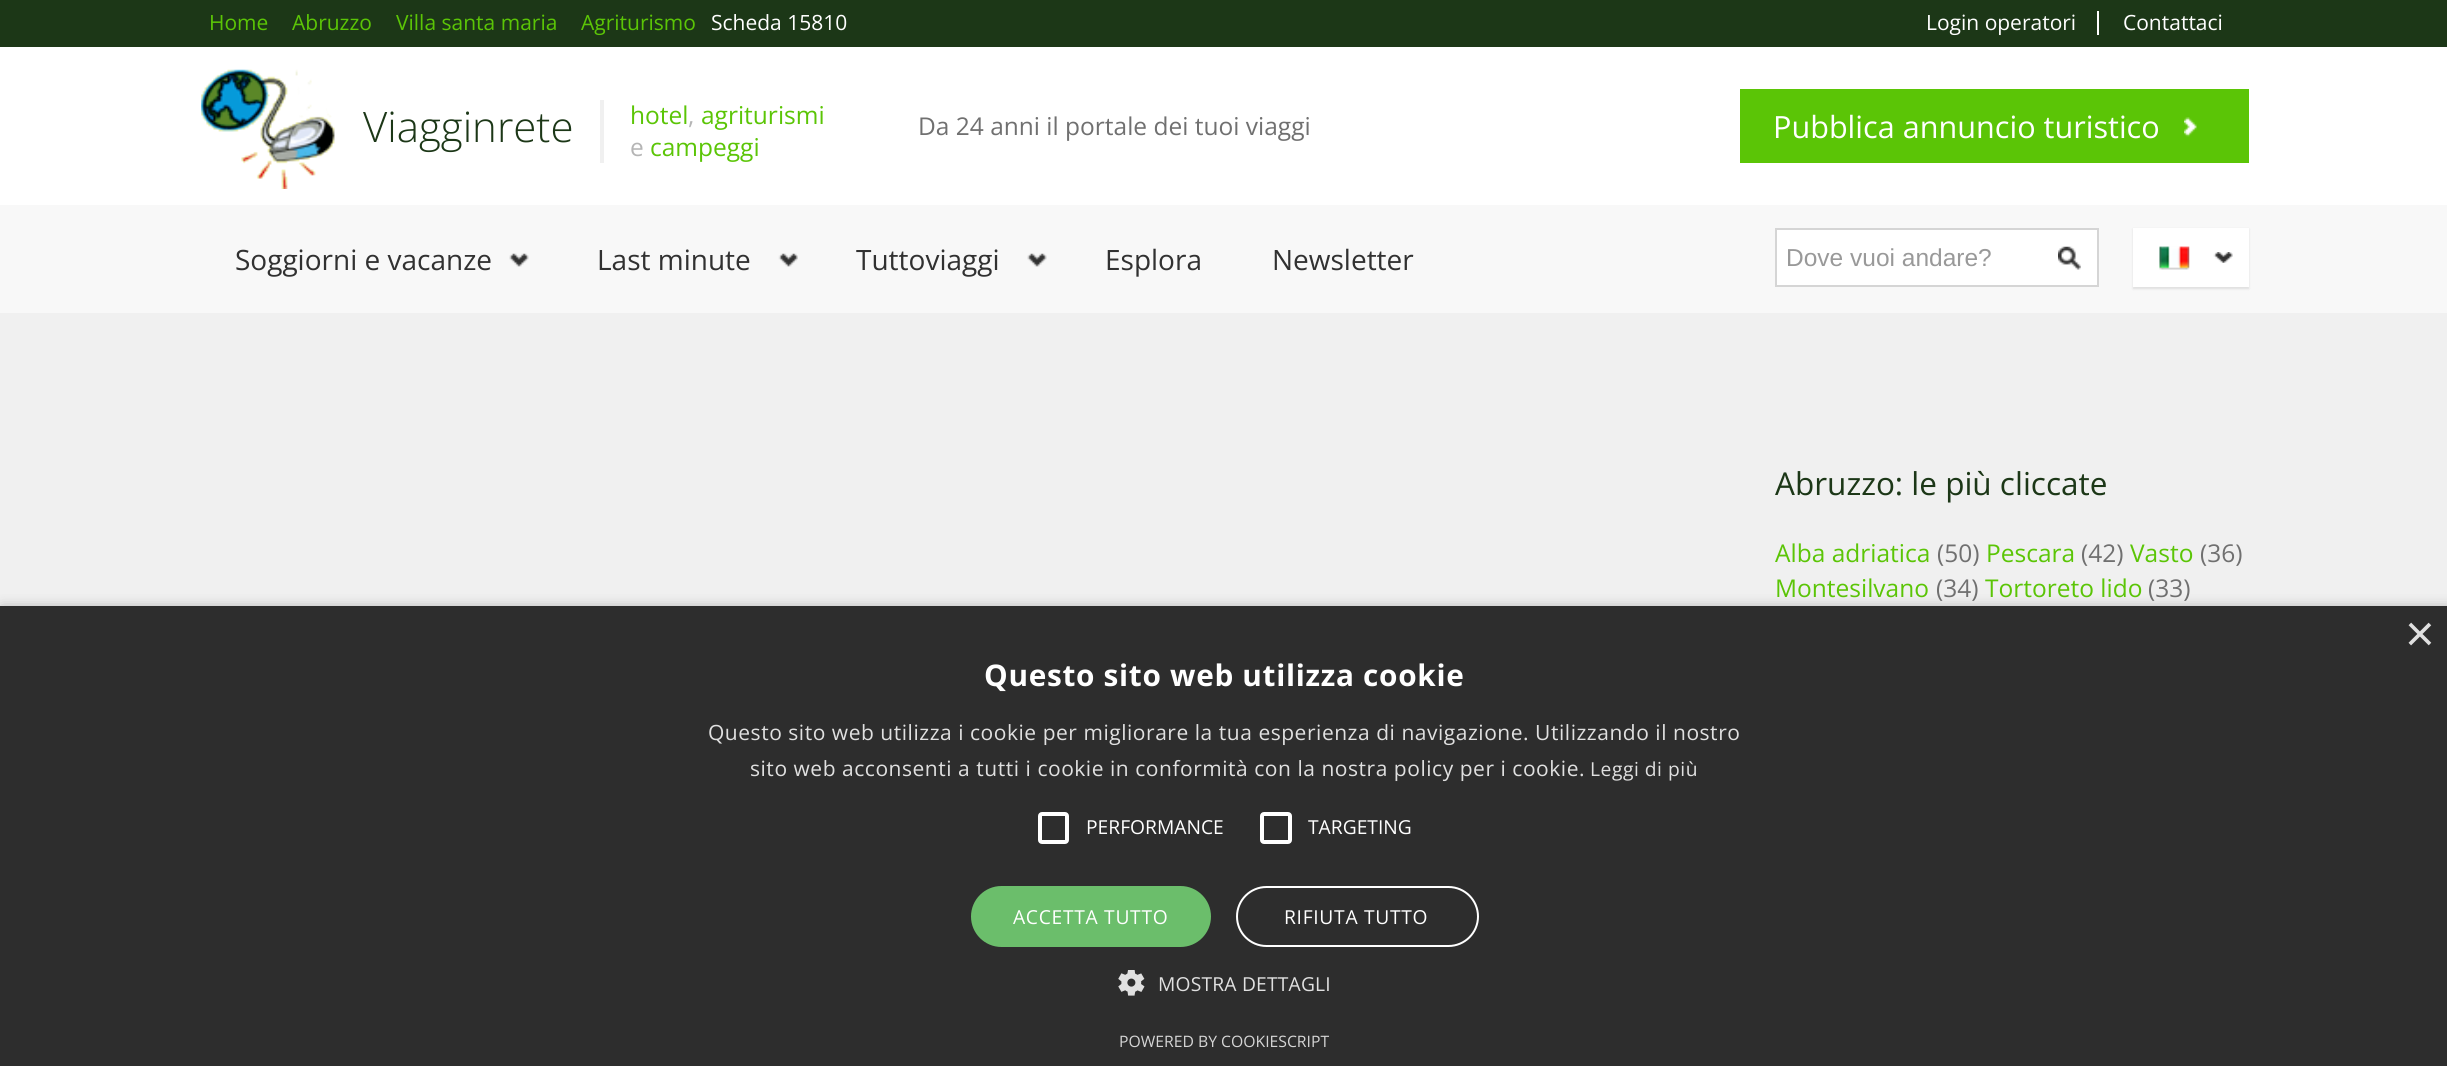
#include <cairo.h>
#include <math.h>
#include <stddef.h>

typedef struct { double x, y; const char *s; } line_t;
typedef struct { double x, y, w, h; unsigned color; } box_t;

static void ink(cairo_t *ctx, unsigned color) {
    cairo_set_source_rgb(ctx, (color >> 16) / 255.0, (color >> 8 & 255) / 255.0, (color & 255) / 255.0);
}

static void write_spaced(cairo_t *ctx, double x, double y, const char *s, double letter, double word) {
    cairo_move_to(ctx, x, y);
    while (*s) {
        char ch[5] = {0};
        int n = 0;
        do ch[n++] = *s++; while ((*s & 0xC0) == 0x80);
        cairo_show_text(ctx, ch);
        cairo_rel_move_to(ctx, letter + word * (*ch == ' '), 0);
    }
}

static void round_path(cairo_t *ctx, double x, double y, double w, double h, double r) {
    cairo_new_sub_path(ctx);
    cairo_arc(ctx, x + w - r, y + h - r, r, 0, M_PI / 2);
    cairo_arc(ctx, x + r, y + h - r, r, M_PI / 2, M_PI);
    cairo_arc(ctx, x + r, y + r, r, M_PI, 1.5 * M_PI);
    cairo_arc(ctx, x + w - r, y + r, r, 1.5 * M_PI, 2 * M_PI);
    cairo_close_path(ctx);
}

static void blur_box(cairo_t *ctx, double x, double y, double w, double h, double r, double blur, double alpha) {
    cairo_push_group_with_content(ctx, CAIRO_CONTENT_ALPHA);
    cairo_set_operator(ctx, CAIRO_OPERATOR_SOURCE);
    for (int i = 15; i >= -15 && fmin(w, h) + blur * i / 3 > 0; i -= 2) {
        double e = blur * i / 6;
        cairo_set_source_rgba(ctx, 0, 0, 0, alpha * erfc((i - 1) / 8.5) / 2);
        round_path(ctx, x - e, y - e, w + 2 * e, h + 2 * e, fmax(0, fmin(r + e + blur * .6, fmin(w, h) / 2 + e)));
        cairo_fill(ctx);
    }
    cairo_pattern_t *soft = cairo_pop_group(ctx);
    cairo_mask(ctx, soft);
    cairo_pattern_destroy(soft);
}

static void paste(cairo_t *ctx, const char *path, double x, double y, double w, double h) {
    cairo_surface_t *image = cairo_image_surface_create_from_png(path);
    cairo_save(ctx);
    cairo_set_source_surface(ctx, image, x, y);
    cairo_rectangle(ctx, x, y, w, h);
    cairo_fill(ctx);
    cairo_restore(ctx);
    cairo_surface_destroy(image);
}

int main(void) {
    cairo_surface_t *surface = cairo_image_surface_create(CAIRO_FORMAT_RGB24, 2447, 1066);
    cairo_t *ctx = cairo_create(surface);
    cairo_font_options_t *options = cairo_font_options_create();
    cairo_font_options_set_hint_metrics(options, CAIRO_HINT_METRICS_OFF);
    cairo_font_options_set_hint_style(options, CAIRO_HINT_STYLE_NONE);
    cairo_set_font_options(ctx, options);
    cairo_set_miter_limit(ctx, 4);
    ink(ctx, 0xF0F0F0);
    cairo_paint(ctx);
    ink(ctx, 0x1C3717);
    cairo_rectangle(ctx, 0, 0, 2447, 47);
    cairo_fill(ctx);
    cairo_select_font_face(ctx, "Open Sans", CAIRO_FONT_SLANT_NORMAL, CAIRO_FONT_WEIGHT_NORMAL);
    cairo_set_font_size(ctx, 21);
    ink(ctx, 0x5BC506);
    {
        static const line_t items[] = {
            {209, 30, "Home"},
            {292, 30, "Abruzzo"},
            {396, 30, "Villa santa maria"},
            {581, 30, "Agriturismo"},
        };
        for (size_t i = 0; i < sizeof items / sizeof *items; i++) {
            cairo_move_to(ctx, items[i].x, items[i].y);
            cairo_show_text(ctx, items[i].s);
        }
    }
    ink(ctx, 0xFFFFFF);
    cairo_move_to(ctx, 711, 30);
    cairo_show_text(ctx, "Scheda 15810");
    cairo_rectangle(ctx, 2097, 11, 2, 24);
    cairo_fill(ctx);
    cairo_move_to(ctx, 1926, 30);
    cairo_show_text(ctx, "Login operatori");
    cairo_move_to(ctx, 2123, 30);
    cairo_show_text(ctx, "Contattaci");
    cairo_rectangle(ctx, 0, 47, 2447, 158);
    cairo_fill(ctx);
    paste(ctx, "media/1.png", 201, 69, 134, 120);
    cairo_select_font_face(ctx, "Open Sans Light", CAIRO_FONT_SLANT_NORMAL, CAIRO_FONT_WEIGHT_NORMAL);
    cairo_set_font_size(ctx, 42);
    ink(ctx, 0x1C3717);
    cairo_move_to(ctx, 363, 142);
    cairo_show_text(ctx, "Viagginrete");
    ink(ctx, 0xF0F0F0);
    cairo_rectangle(ctx, 600, 100, 4, 63);
    cairo_fill(ctx);
    cairo_select_font_face(ctx, "Open Sans", CAIRO_FONT_SLANT_NORMAL, CAIRO_FONT_WEIGHT_NORMAL);
    cairo_set_font_size(ctx, 24.5);
    ink(ctx, 0x5BC506);
    cairo_move_to(ctx, 630, 124);
    cairo_show_text(ctx, "hotel");
    ink(ctx, 0xB5B5B5);
    cairo_move_to(ctx, 688, 124);
    cairo_show_text(ctx, ",");
    ink(ctx, 0x5BC506);
    cairo_move_to(ctx, 701, 124);
    cairo_show_text(ctx, "agriturismi");
    ink(ctx, 0xB5B5B5);
    cairo_move_to(ctx, 630, 156);
    cairo_show_text(ctx, "e");
    ink(ctx, 0x5BC506);
    cairo_move_to(ctx, 650, 156);
    cairo_show_text(ctx, "campeggi");
    ink(ctx, 0x707070);
    cairo_move_to(ctx, 918, 135);
    cairo_show_text(ctx, "Da 24 anni il portale dei tuoi viaggi");
    ink(ctx, 0x5BC506);
    cairo_rectangle(ctx, 1740, 89, 509, 74);
    cairo_fill(ctx);
    paste(ctx, "media/2.png", 2184, 117, 13, 20);
    cairo_set_font_size(ctx, 30.6);
    ink(ctx, 0xFFFFFF);
    cairo_move_to(ctx, 1773, 138);
    cairo_show_text(ctx, "Pubblica annuncio turistico");
    ink(ctx, 0xF8F8F8);
    cairo_rectangle(ctx, 0, 205, 2447, 108);
    cairo_fill(ctx);
    paste(ctx, "media/3.png", 509, 253, 20, 14);
    cairo_set_font_size(ctx, 28);
    ink(ctx, 0x313131);
    cairo_move_to(ctx, 235, 270);
    cairo_show_text(ctx, "Soggiorni e vacanze");
    paste(ctx, "media/4.png", 778, 253, 20, 14);
    cairo_move_to(ctx, 597, 270);
    cairo_show_text(ctx, "Last minute");
    paste(ctx, "media/3.png", 1027, 253, 20, 14);
    {
        static const line_t items[] = {
            {856, 270, "Tuttoviaggi"},
            {1105, 270, "Esplora"},
            {1272, 270, "Newsletter"},
        };
        for (size_t i = 0; i < sizeof items / sizeof *items; i++) {
            cairo_move_to(ctx, items[i].x, items[i].y);
            cairo_show_text(ctx, items[i].s);
        }
    }
    ink(ctx, 0xFFFFFF);
    cairo_rectangle(ctx, 1777, 230, 320, 55);
    cairo_fill(ctx);
    paste(ctx, "media/5.png", 2058, 246, 23, 24);
    {
        static const box_t items[] = {
            {1775, 228, 323, 2, 0xD5D5D5},
            {2097, 228, 2, 59, 0xD5D5D5},
            {1775, 285, 323, 2, 0xD5D5D5},
            {1775, 228, 2, 59, 0xD5D5D5},
        };
        for (size_t i = 0; i < sizeof items / sizeof *items; i++) {
            ink(ctx, items[i].color);
            cairo_rectangle(ctx, items[i].x, items[i].y, items[i].w, items[i].h);
            cairo_fill(ctx);
        }
    }
    cairo_select_font_face(ctx, "Liberation Sans", CAIRO_FONT_SLANT_NORMAL, CAIRO_FONT_WEIGHT_NORMAL);
    cairo_set_font_size(ctx, 24.5);
    ink(ctx, 0x999999);
    cairo_move_to(ctx, 1786, 266);
    cairo_show_text(ctx, "Dove vuoi andare?");
    ink(ctx, 0x000000);
    blur_box(ctx, 2133, 229, 116, 60, 0, 1, 0.1);
    ink(ctx, 0xFFFFFF);
    cairo_rectangle(ctx, 2133, 228, 116, 59);
    cairo_fill(ctx);
    paste(ctx, "media/6.png", 2213, 252, 20, 11);
    paste(ctx, "media/7.png", 2159, 246, 31, 24);
    cairo_select_font_face(ctx, "Open Sans", CAIRO_FONT_SLANT_NORMAL, CAIRO_FONT_WEIGHT_NORMAL);
    cairo_set_font_size(ctx, 31.5);
    ink(ctx, 0x1C3717);
    cairo_move_to(ctx, 1775, 495);
    cairo_show_text(ctx, "Abruzzo: le più cliccate");
    cairo_set_font_size(ctx, 24.5);
    ink(ctx, 0x5BC506);
    cairo_move_to(ctx, 1775, 562);
    cairo_show_text(ctx, "Alba adriatica");
    ink(ctx, 0x707070);
    cairo_move_to(ctx, 1937, 562);
    cairo_show_text(ctx, "(50)");
    ink(ctx, 0x5BC506);
    cairo_move_to(ctx, 1986, 562);
    cairo_show_text(ctx, "Pescara");
    ink(ctx, 0x707070);
    cairo_move_to(ctx, 2081, 562);
    cairo_show_text(ctx, "(42)");
    ink(ctx, 0x5BC506);
    cairo_move_to(ctx, 2130, 562);
    cairo_show_text(ctx, "Vasto");
    ink(ctx, 0x707070);
    cairo_move_to(ctx, 2200, 562);
    cairo_show_text(ctx, "(36)");
    ink(ctx, 0x5BC506);
    cairo_move_to(ctx, 1775, 597);
    cairo_show_text(ctx, "Montesilvano");
    ink(ctx, 0x707070);
    cairo_move_to(ctx, 1936, 597);
    cairo_show_text(ctx, "(34)");
    ink(ctx, 0x5BC506);
    cairo_move_to(ctx, 1985, 597);
    cairo_show_text(ctx, "Tortoreto lido");
    ink(ctx, 0x707070);
    cairo_move_to(ctx, 2148, 597);
    cairo_show_text(ctx, "(33)");
    ink(ctx, 0x000000);
    blur_box(ctx, 2, 609, 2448, 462, 0, 7, 0.35);
    ink(ctx, 0x2D2D2D);
    cairo_rectangle(ctx, 0, 606, 2447, 460);
    cairo_fill(ctx);
    cairo_select_font_face(ctx, "Liberation Sans", CAIRO_FONT_SLANT_NORMAL, CAIRO_FONT_WEIGHT_NORMAL);
    cairo_set_font_size(ctx, 51);
    ink(ctx, 0xE0E0E0);
    cairo_move_to(ctx, 2405, 651);
    cairo_show_text(ctx, "×");
    cairo_select_font_face(ctx, "Open Sans", CAIRO_FONT_SLANT_NORMAL, CAIRO_FONT_WEIGHT_BOLD);
    cairo_set_font_size(ctx, 29.75);
    ink(ctx, 0xFFFFFF);
    write_spaced(ctx, 984, 686, "Questo sito web utilizza cookie", 0.7, 0);
    cairo_select_font_face(ctx, "Open Sans", CAIRO_FONT_SLANT_NORMAL, CAIRO_FONT_WEIGHT_NORMAL);
    cairo_set_font_size(ctx, 21);
    ink(ctx, 0xE0E0E0);
    write_spaced(ctx, 708, 740, "Questo sito web utilizza i cookie per migliorare la tua esperienza di navigazione. Utilizzando il nostro", 0.53, 0);
    write_spaced(ctx, 750, 776, "sito web acconsenti a tutti i cookie in conformità con la nostra policy per i cookie.", 0.53, 0);
    cairo_set_font_size(ctx, 19.25);
    write_spaced(ctx, 1590, 776, "Leggi di più", 0.53, 0);
    round_path(ctx, 1040, 814, 27, 28, 2);
    ink(ctx, 0xFFFFFF);
    cairo_set_line_width(ctx, 4);
    cairo_stroke(ctx);
    cairo_move_to(ctx, 1086, 834);
    cairo_show_text(ctx, "PERFORMANCE");
    round_path(ctx, 1262, 814, 28, 28, 2);
    cairo_stroke(ctx);
    cairo_move_to(ctx, 1308, 834);
    cairo_show_text(ctx, "TARGETING");
    ink(ctx, 0x6BBE6B);
    round_path(ctx, 971, 886, 240, 61, 30.5);
    cairo_fill(ctx);
    ink(ctx, 0xFFFFFF);
    write_spaced(ctx, 1013, 924, "ACCETTA TUTTO", 0.7, 0);
    round_path(ctx, 1237, 887, 241, 59, 29.5);
    cairo_set_line_width(ctx, 2);
    cairo_stroke(ctx);
    write_spaced(ctx, 1284, 924, "RIFIUTA TUTTO", 0.7, 0);
    paste(ctx, "media/8.png", 1118, 970, 27, 26);
    ink(ctx, 0xE0E0E0);
    write_spaced(ctx, 1158, 991, "MOSTRA DETTAGLI", 0.2, 0);
    cairo_set_font_size(ctx, 15.75);
    ink(ctx, 0xD5D5D5);
    cairo_move_to(ctx, 1119, 1047);
    cairo_show_text(ctx, "POWERED BY COOKIESCRIPT");
    cairo_surface_write_to_png(surface, "image.png");
    cairo_font_options_destroy(options);
    cairo_destroy(ctx);
    cairo_surface_destroy(surface);
    return 0;
}
